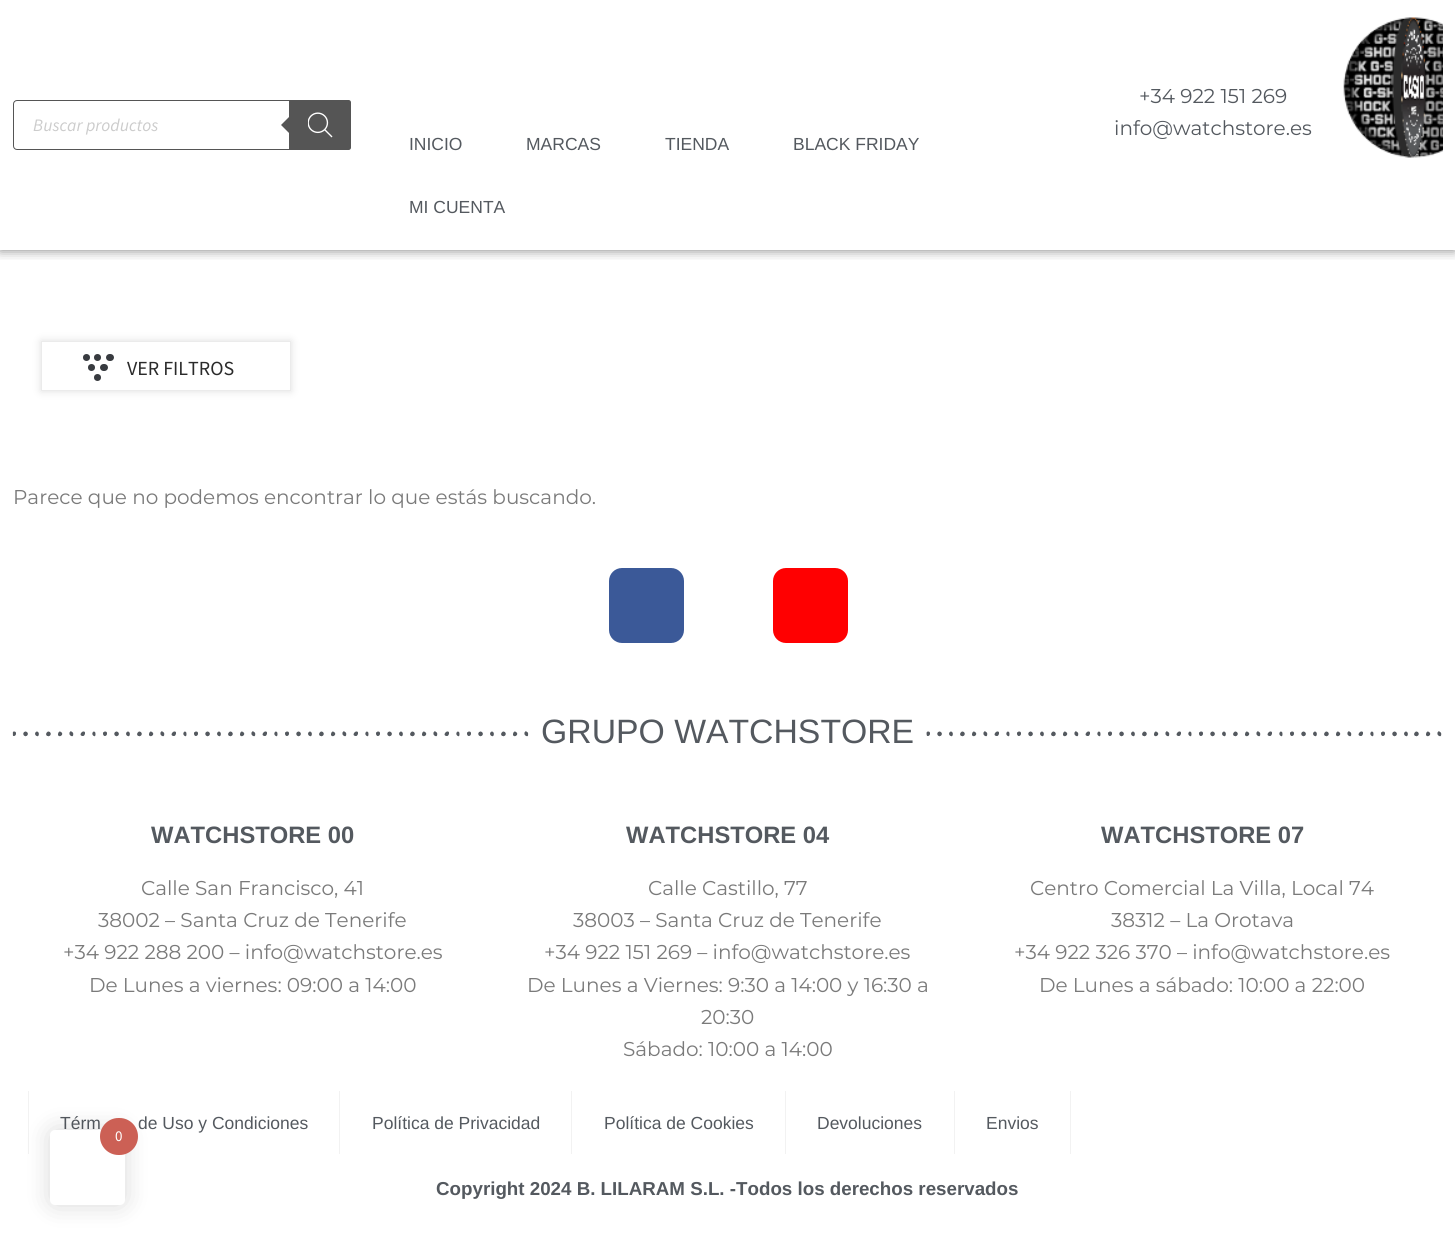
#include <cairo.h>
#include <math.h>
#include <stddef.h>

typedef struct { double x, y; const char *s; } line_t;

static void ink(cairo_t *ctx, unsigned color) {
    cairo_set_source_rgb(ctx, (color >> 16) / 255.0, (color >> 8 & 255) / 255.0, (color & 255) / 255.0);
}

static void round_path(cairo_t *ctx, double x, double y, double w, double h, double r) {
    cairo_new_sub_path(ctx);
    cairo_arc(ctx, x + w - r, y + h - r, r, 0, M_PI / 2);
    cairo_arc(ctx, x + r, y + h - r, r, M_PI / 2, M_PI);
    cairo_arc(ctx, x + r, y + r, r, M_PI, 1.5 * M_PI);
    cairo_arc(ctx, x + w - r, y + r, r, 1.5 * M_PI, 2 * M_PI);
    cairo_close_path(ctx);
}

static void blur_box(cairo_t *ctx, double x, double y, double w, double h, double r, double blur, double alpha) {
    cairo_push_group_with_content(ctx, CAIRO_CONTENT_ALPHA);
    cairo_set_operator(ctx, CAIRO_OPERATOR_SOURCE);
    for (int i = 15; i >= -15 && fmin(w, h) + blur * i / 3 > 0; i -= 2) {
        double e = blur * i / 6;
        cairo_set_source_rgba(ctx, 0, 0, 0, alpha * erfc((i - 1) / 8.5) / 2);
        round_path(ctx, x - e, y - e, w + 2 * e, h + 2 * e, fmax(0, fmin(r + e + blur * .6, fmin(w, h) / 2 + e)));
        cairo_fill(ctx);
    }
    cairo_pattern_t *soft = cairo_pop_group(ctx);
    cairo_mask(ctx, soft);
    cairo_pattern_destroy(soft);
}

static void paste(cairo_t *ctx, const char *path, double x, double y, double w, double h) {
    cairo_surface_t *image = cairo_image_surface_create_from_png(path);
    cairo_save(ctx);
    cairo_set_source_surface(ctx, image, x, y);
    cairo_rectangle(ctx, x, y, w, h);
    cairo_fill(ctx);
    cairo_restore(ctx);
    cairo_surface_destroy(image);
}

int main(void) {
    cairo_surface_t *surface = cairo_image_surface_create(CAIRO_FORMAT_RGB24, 1455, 1255);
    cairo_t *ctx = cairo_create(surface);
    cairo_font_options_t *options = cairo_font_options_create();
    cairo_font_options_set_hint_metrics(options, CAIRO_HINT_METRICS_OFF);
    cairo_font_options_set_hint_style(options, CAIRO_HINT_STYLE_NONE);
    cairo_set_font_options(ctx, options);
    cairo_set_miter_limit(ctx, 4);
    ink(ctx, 0xFFFFFF);
    cairo_paint(ctx);
    cairo_save(ctx);
    cairo_rectangle(ctx, 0, 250, 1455, 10);
    cairo_clip(ctx);
    ink(ctx, 0x000000);
    blur_box(ctx, 0, 0, 1455, 250, 0, 6, 0.5);
    cairo_restore(ctx);
    round_path(ctx, 13.5, 100.5, 337, 49, 3.5);
    ink(ctx, 0x555555);
    cairo_set_line_width(ctx, 1);
    cairo_stroke(ctx);
    cairo_select_font_face(ctx, "Source Sans Pro", CAIRO_FONT_SLANT_ITALIC, CAIRO_FONT_WEIGHT_NORMAL);
    cairo_set_font_size(ctx, 17.5);
    ink(ctx, 0xCCCCCC);
    cairo_move_to(ctx, 33, 131);
    cairo_show_text(ctx, "Buscar productos");
    ink(ctx, 0x555555);
    cairo_new_path(ctx);
    cairo_move_to(ctx, 289, 100);
    cairo_line_to(ctx, 348.5, 100);
    cairo_curve_to(ctx, 350, 100, 351, 101, 351, 102.5);
    cairo_line_to(ctx, 351, 147.5);
    cairo_curve_to(ctx, 351, 149, 350, 150, 348.5, 150);
    cairo_line_to(ctx, 289, 150);
    cairo_close_path(ctx);
    cairo_fill(ctx);
    cairo_new_path(ctx);
    cairo_move_to(ctx, 291, 115);
    cairo_line_to(ctx, 291, 135);
    cairo_line_to(ctx, 281, 125);
    cairo_close_path(ctx);
    cairo_fill(ctx);
    paste(ctx, "media/1.png", 308, 112, 25, 26);
    cairo_select_font_face(ctx, "Montserrat Thin", CAIRO_FONT_SLANT_NORMAL, CAIRO_FONT_WEIGHT_NORMAL);
    cairo_set_font_size(ctx, 20);
    ink(ctx, 0x54595F);
    cairo_move_to(ctx, 1139, 103);
    cairo_show_text(ctx, "+34 922 151 269");
    cairo_move_to(ctx, 1114, 135);
    cairo_show_text(ctx, "info@watchstore.es");
    paste(ctx, "media/2.png", 1343, 17, 100, 141);
    cairo_select_font_face(ctx, "Liberation Sans", CAIRO_FONT_SLANT_NORMAL, CAIRO_FONT_WEIGHT_NORMAL);
    cairo_set_font_size(ctx, 17.5);
    {
        static const line_t items[] = {
            {409, 150, "INICIO"},
            {526, 150, "MARCAS"},
            {665, 150, "TIENDA"},
            {793, 150, "BLACK FRIDAY"},
            {409, 213, "MI CUENTA"},
        };
        for (size_t i = 0; i < sizeof items / sizeof *items; i++) {
            cairo_move_to(ctx, items[i].x, items[i].y);
            cairo_show_text(ctx, items[i].s);
        }
    }
    ink(ctx, 0xDEDEDE);
    blur_box(ctx, 41, 341, 250, 50, 0, 4, 1);
    ink(ctx, 0xFFFFFF);
    cairo_rectangle(ctx, 41.5, 341.5, 249, 49);
    cairo_fill_preserve(ctx);
    ink(ctx, 0xEBEBEB);
    cairo_stroke(ctx);
    ink(ctx, 0x383B40);
    cairo_arc(ctx, 86.5, 357.5, 3.5, 0, 2 * M_PI);
    cairo_fill(ctx);
    cairo_arc(ctx, 97.5, 357.5, 3.5, 0, 2 * M_PI);
    cairo_fill(ctx);
    round_path(ctx, 106, 354, 8, 7, 3.5);
    cairo_fill(ctx);
    cairo_arc(ctx, 91.5, 367.5, 3.5, 0, 2 * M_PI);
    cairo_fill(ctx);
    round_path(ctx, 100, 364, 8, 7, 3.5);
    cairo_fill(ctx);
    cairo_arc(ctx, 97.5, 377.5, 3.5, 0, 2 * M_PI);
    cairo_fill(ctx);
    cairo_select_font_face(ctx, "Source Sans Pro", CAIRO_FONT_SLANT_NORMAL, CAIRO_FONT_WEIGHT_NORMAL);
    cairo_set_font_size(ctx, 20);
    ink(ctx, 0x2A2A2A);
    cairo_move_to(ctx, 127, 375);
    cairo_show_text(ctx, "VER FILTROS");
    cairo_select_font_face(ctx, "Montserrat Thin", CAIRO_FONT_SLANT_NORMAL, CAIRO_FONT_WEIGHT_NORMAL);
    ink(ctx, 0x7A7A7A);
    cairo_move_to(ctx, 13, 504);
    cairo_show_text(ctx, "Parece que no podemos encontrar lo que estás buscando.");
    ink(ctx, 0x3B5998);
    round_path(ctx, 609, 568, 75, 75, 13);
    cairo_fill(ctx);
    ink(ctx, 0xFF0001);
    round_path(ctx, 773, 568, 75, 75, 13);
    cairo_fill(ctx);
    paste(ctx, "media/3.png", 12, 731, 517, 6);
    cairo_select_font_face(ctx, "Liberation Sans", CAIRO_FONT_SLANT_NORMAL, CAIRO_FONT_WEIGHT_NORMAL);
    cairo_set_font_size(ctx, 33.75);
    ink(ctx, 0x54595F);
    cairo_move_to(ctx, 541, 743);
    cairo_show_text(ctx, "GRUPO WATCHSTORE");
    paste(ctx, "media/4.png", 926, 731, 516, 6);
    cairo_select_font_face(ctx, "Liberation Sans", CAIRO_FONT_SLANT_NORMAL, CAIRO_FONT_WEIGHT_BOLD);
    cairo_set_font_size(ctx, 23.75);
    cairo_move_to(ctx, 151, 843);
    cairo_show_text(ctx, "WATCHSTORE 00");
    cairo_select_font_face(ctx, "Montserrat Thin", CAIRO_FONT_SLANT_NORMAL, CAIRO_FONT_WEIGHT_NORMAL);
    cairo_set_font_size(ctx, 20);
    ink(ctx, 0x7A7A7A);
    {
        static const line_t items[] = {
            {141, 895, "Calle San Francisco, 41"},
            {98, 927, "38002 – Santa Cruz de Tenerife"},
            {63, 959, "+34 922 288 200 – info@watchstore.es"},
            {89, 992, "De Lunes a viernes: 09:00 a 14:00"},
        };
        for (size_t i = 0; i < sizeof items / sizeof *items; i++) {
            cairo_move_to(ctx, items[i].x, items[i].y);
            cairo_show_text(ctx, items[i].s);
        }
    }
    cairo_select_font_face(ctx, "Liberation Sans", CAIRO_FONT_SLANT_NORMAL, CAIRO_FONT_WEIGHT_BOLD);
    cairo_set_font_size(ctx, 23.75);
    ink(ctx, 0x54595F);
    cairo_move_to(ctx, 626, 843);
    cairo_show_text(ctx, "WATCHSTORE 04");
    cairo_select_font_face(ctx, "Montserrat Thin", CAIRO_FONT_SLANT_NORMAL, CAIRO_FONT_WEIGHT_NORMAL);
    cairo_set_font_size(ctx, 20);
    ink(ctx, 0x7A7A7A);
    {
        static const line_t items[] = {
            {648, 895, "Calle Castillo, 77"},
            {573, 927, "38003 – Santa Cruz de Tenerife"},
            {544, 959, "+34 922 151 269 – info@watchstore.es"},
            {527, 992, "De Lunes a Viernes: 9:30 a 14:00 y 16:30 a"},
            {701, 1024, "20:30"},
            {623, 1056, "Sábado: 10:00 a 14:00"},
        };
        for (size_t i = 0; i < sizeof items / sizeof *items; i++) {
            cairo_move_to(ctx, items[i].x, items[i].y);
            cairo_show_text(ctx, items[i].s);
        }
    }
    cairo_select_font_face(ctx, "Liberation Sans", CAIRO_FONT_SLANT_NORMAL, CAIRO_FONT_WEIGHT_BOLD);
    cairo_set_font_size(ctx, 23.75);
    ink(ctx, 0x54595F);
    cairo_move_to(ctx, 1101, 843);
    cairo_show_text(ctx, "WATCHSTORE 07");
    cairo_select_font_face(ctx, "Montserrat Thin", CAIRO_FONT_SLANT_NORMAL, CAIRO_FONT_WEIGHT_NORMAL);
    cairo_set_font_size(ctx, 20);
    ink(ctx, 0x7A7A7A);
    {
        static const line_t items[] = {
            {1030, 895, "Centro Comercial La Villa, Local 74"},
            {1111, 927, "38312 – La Orotava"},
            {1014, 959, "+34 922 326 370 – info@watchstore.es"},
            {1039, 992, "De Lunes a sábado: 10:00 a 22:00"},
        };
        for (size_t i = 0; i < sizeof items / sizeof *items; i++) {
            cairo_move_to(ctx, items[i].x, items[i].y);
            cairo_show_text(ctx, items[i].s);
        }
    }
    ink(ctx, 0xF2F2F2);
    cairo_rectangle(ctx, 28, 1091, 1, 63);
    cairo_fill(ctx);
    cairo_select_font_face(ctx, "Liberation Sans", CAIRO_FONT_SLANT_NORMAL, CAIRO_FONT_WEIGHT_NORMAL);
    cairo_set_font_size(ctx, 17.5);
    ink(ctx, 0x54595F);
    cairo_move_to(ctx, 60, 1129);
    cairo_show_text(ctx, "Térm");
    cairo_move_to(ctx, 138, 1129);
    cairo_show_text(ctx, "de Uso y Condiciones");
    ink(ctx, 0xF2F2F2);
    cairo_rectangle(ctx, 339, 1091, 1, 63);
    cairo_fill(ctx);
    ink(ctx, 0x54595F);
    cairo_move_to(ctx, 372, 1129);
    cairo_show_text(ctx, "Política de Privacidad");
    ink(ctx, 0xF2F2F2);
    cairo_rectangle(ctx, 571, 1091, 1, 63);
    cairo_fill(ctx);
    ink(ctx, 0x54595F);
    cairo_move_to(ctx, 604, 1129);
    cairo_show_text(ctx, "Política de Cookies");
    ink(ctx, 0xF2F2F2);
    cairo_rectangle(ctx, 785, 1091, 1, 63);
    cairo_fill(ctx);
    ink(ctx, 0x54595F);
    cairo_move_to(ctx, 817, 1129);
    cairo_show_text(ctx, "Devoluciones");
    ink(ctx, 0xF2F2F2);
    cairo_rectangle(ctx, 1070, 1091, 1, 63);
    cairo_fill(ctx);
    cairo_rectangle(ctx, 954, 1091, 1, 63);
    cairo_fill(ctx);
    ink(ctx, 0x54595F);
    cairo_move_to(ctx, 986, 1129);
    cairo_show_text(ctx, "Envios");
    cairo_select_font_face(ctx, "Liberation Sans", CAIRO_FONT_SLANT_NORMAL, CAIRO_FONT_WEIGHT_BOLD);
    cairo_set_font_size(ctx, 18.75);
    cairo_move_to(ctx, 436, 1195);
    cairo_show_text(ctx, "Copyright 2024 B. LILARAM S.L. -Todos los derechos reservados");
    ink(ctx, 0x000000);
    blur_box(ctx, 50, 1130, 75, 75, 5, 12.5, 0.15);
    ink(ctx, 0xFFFFFF);
    round_path(ctx, 50, 1130, 75, 75, 5);
    cairo_fill(ctx);
    ink(ctx, 0xCC6055);
    round_path(ctx, 100, 1118, 38, 37, 18.5);
    cairo_fill(ctx);
    cairo_select_font_face(ctx, "Source Sans Pro", CAIRO_FONT_SLANT_NORMAL, CAIRO_FONT_WEIGHT_NORMAL);
    cairo_set_font_size(ctx, 15);
    ink(ctx, 0xFFFFFF);
    cairo_move_to(ctx, 115, 1141);
    cairo_show_text(ctx, "0");
    cairo_surface_write_to_png(surface, "image.png");
    cairo_font_options_destroy(options);
    cairo_destroy(ctx);
    cairo_surface_destroy(surface);
    return 0;
}
